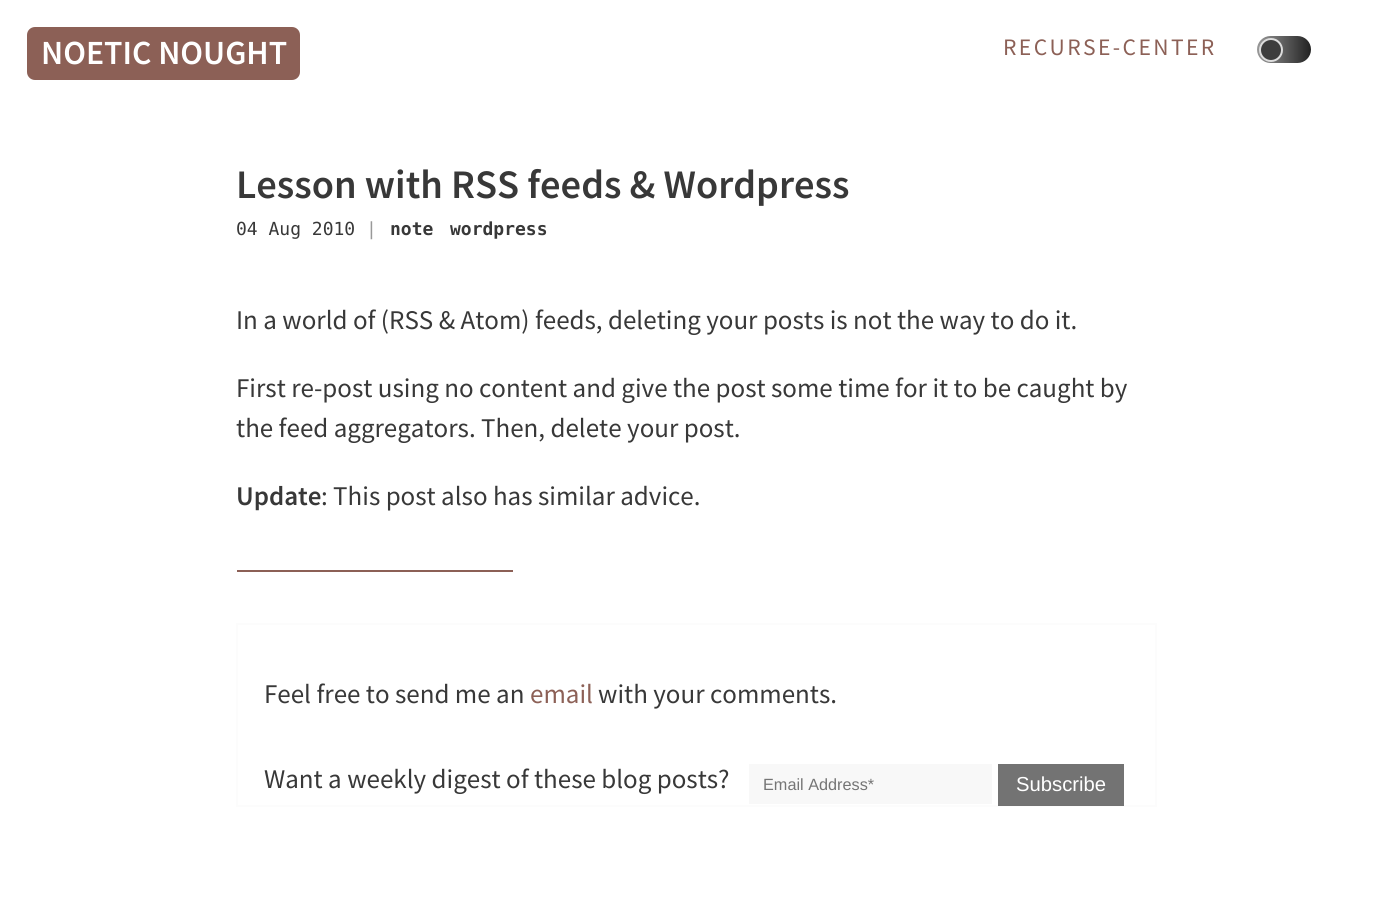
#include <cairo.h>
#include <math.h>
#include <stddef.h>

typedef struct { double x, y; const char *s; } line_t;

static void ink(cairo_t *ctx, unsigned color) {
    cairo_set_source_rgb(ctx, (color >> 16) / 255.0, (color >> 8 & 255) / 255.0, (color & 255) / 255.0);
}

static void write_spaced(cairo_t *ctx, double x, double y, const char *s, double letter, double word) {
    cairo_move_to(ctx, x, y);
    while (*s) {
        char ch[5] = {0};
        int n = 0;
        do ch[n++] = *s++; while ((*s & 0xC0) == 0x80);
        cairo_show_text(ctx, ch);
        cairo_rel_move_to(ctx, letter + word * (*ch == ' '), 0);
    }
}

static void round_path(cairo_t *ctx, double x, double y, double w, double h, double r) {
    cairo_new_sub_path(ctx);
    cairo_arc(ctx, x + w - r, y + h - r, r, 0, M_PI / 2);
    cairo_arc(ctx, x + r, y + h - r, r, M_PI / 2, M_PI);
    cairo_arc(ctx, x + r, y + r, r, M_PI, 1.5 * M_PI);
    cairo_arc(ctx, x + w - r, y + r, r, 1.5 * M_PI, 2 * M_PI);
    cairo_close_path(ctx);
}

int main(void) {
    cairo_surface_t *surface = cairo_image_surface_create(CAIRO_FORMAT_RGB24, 1391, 920);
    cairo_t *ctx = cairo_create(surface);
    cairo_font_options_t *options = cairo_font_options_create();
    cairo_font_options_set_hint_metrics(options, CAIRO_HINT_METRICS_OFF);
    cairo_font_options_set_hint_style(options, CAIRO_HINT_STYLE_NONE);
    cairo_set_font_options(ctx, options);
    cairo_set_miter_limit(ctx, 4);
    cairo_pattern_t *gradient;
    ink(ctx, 0xFFFFFF);
    cairo_paint(ctx);
    ink(ctx, 0x8C6056);
    round_path(ctx, 27, 27, 273, 53, 8);
    cairo_fill(ctx);
    cairo_select_font_face(ctx, "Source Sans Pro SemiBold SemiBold", CAIRO_FONT_SLANT_NORMAL, CAIRO_FONT_WEIGHT_NORMAL);
    cairo_set_font_size(ctx, 33.75);
    ink(ctx, 0xFFFFFF);
    cairo_move_to(ctx, 41, 64);
    cairo_show_text(ctx, "NOETIC NOUGHT");
    cairo_select_font_face(ctx, "Source Sans Pro", CAIRO_FONT_SLANT_NORMAL, CAIRO_FONT_WEIGHT_NORMAL);
    cairo_set_font_size(ctx, 23.6);
    ink(ctx, 0x8C6056);
    write_spaced(ctx, 1003, 55, "RECURSE-CENTER", 2.4, 0);
    gradient = cairo_pattern_create_linear(1257, 50, 1311, 50);
    cairo_pattern_add_color_stop_rgba(gradient, 0, 0.6, 0.6, 0.6, 1);
    cairo_pattern_add_color_stop_rgba(gradient, 1, 0.133, 0.133, 0.133, 1);
    cairo_set_source(ctx, gradient);
    cairo_pattern_destroy(gradient);
    round_path(ctx, 1257, 36, 54, 27, 13.5);
    cairo_fill(ctx);
    ink(ctx, 0x3D3D3D);
    cairo_arc(ctx, 1271, 50, 11, 0, 2 * M_PI);
    cairo_fill_preserve(ctx);
    ink(ctx, 0xDDDDDD);
    cairo_stroke(ctx);
    cairo_select_font_face(ctx, "Source Sans Pro SemiBold SemiBold", CAIRO_FONT_SLANT_NORMAL, CAIRO_FONT_WEIGHT_NORMAL);
    cairo_set_font_size(ctx, 40.5);
    ink(ctx, 0x383838);
    cairo_move_to(ctx, 236, 198);
    cairo_show_text(ctx, "Lesson with RSS feeds & Wordpress");
    cairo_select_font_face(ctx, "DejaVu Sans Mono", CAIRO_FONT_SLANT_NORMAL, CAIRO_FONT_WEIGHT_NORMAL);
    cairo_set_font_size(ctx, 18);
    cairo_move_to(ctx, 236, 235);
    cairo_show_text(ctx, "04 Aug 2010");
    ink(ctx, 0x999999);
    cairo_move_to(ctx, 366, 235);
    cairo_show_text(ctx, "|");
    cairo_select_font_face(ctx, "DejaVu Sans Mono", CAIRO_FONT_SLANT_NORMAL, CAIRO_FONT_WEIGHT_BOLD);
    ink(ctx, 0x383838);
    cairo_move_to(ctx, 390, 235);
    cairo_show_text(ctx, "note");
    cairo_move_to(ctx, 450, 235);
    cairo_show_text(ctx, "wordpress");
    cairo_select_font_face(ctx, "Source Sans Pro", CAIRO_FONT_SLANT_NORMAL, CAIRO_FONT_WEIGHT_NORMAL);
    cairo_set_font_size(ctx, 27);
    {
        static const line_t items[] = {
            {236, 329, "In a world of (RSS & Atom) feeds, deleting your posts is not the way to do it."},
            {236, 397, "First re-post using no content and give the post some time for it to be caught by"},
            {236, 437, "the feed aggregators. Then, delete your post."},
        };
        for (size_t i = 0; i < sizeof items / sizeof *items; i++) {
            cairo_move_to(ctx, items[i].x, items[i].y);
            cairo_show_text(ctx, items[i].s);
        }
    }
    cairo_select_font_face(ctx, "Source Sans Pro SemiBold SemiBold", CAIRO_FONT_SLANT_NORMAL, CAIRO_FONT_WEIGHT_NORMAL);
    cairo_move_to(ctx, 236, 505);
    cairo_show_text(ctx, "Update");
    cairo_select_font_face(ctx, "Source Sans Pro", CAIRO_FONT_SLANT_NORMAL, CAIRO_FONT_WEIGHT_NORMAL);
    cairo_move_to(ctx, 321, 505);
    cairo_show_text(ctx, ": This post also has similar advice.");
    cairo_rectangle(ctx, 237, 624, 919, 182);
    ink(ctx, 0xFCFCFC);
    cairo_stroke(ctx);
    ink(ctx, 0x8C6056);
    cairo_rectangle(ctx, 237, 570, 276, 2);
    cairo_fill(ctx);
    ink(ctx, 0x383838);
    cairo_move_to(ctx, 264, 703);
    cairo_show_text(ctx, "Feel free to send me an");
    ink(ctx, 0x8C6056);
    cairo_move_to(ctx, 530, 703);
    cairo_show_text(ctx, "email");
    ink(ctx, 0x383838);
    cairo_move_to(ctx, 598, 703);
    cairo_show_text(ctx, "with your comments.");
    cairo_move_to(ctx, 264, 788);
    cairo_show_text(ctx, "Want a weekly digest of these blog posts?");
    ink(ctx, 0xF8F8F8);
    cairo_rectangle(ctx, 749, 764, 243, 40);
    cairo_fill(ctx);
    cairo_select_font_face(ctx, "Liberation Sans", CAIRO_FONT_SLANT_NORMAL, CAIRO_FONT_WEIGHT_NORMAL);
    cairo_set_font_size(ctx, 16.25);
    ink(ctx, 0x757575);
    cairo_move_to(ctx, 763, 790);
    cairo_show_text(ctx, "Email Address*");
    cairo_set_source_rgba(ctx, 0.22, 0.22, 0.22, 0.7);
    cairo_rectangle(ctx, 998, 764, 126, 42);
    cairo_fill(ctx);
    cairo_set_font_size(ctx, 20.25);
    ink(ctx, 0xFFFFFF);
    cairo_move_to(ctx, 1016, 791);
    cairo_show_text(ctx, "Subscribe");
    cairo_surface_write_to_png(surface, "image.png");
    cairo_font_options_destroy(options);
    cairo_destroy(ctx);
    cairo_surface_destroy(surface);
    return 0;
}
